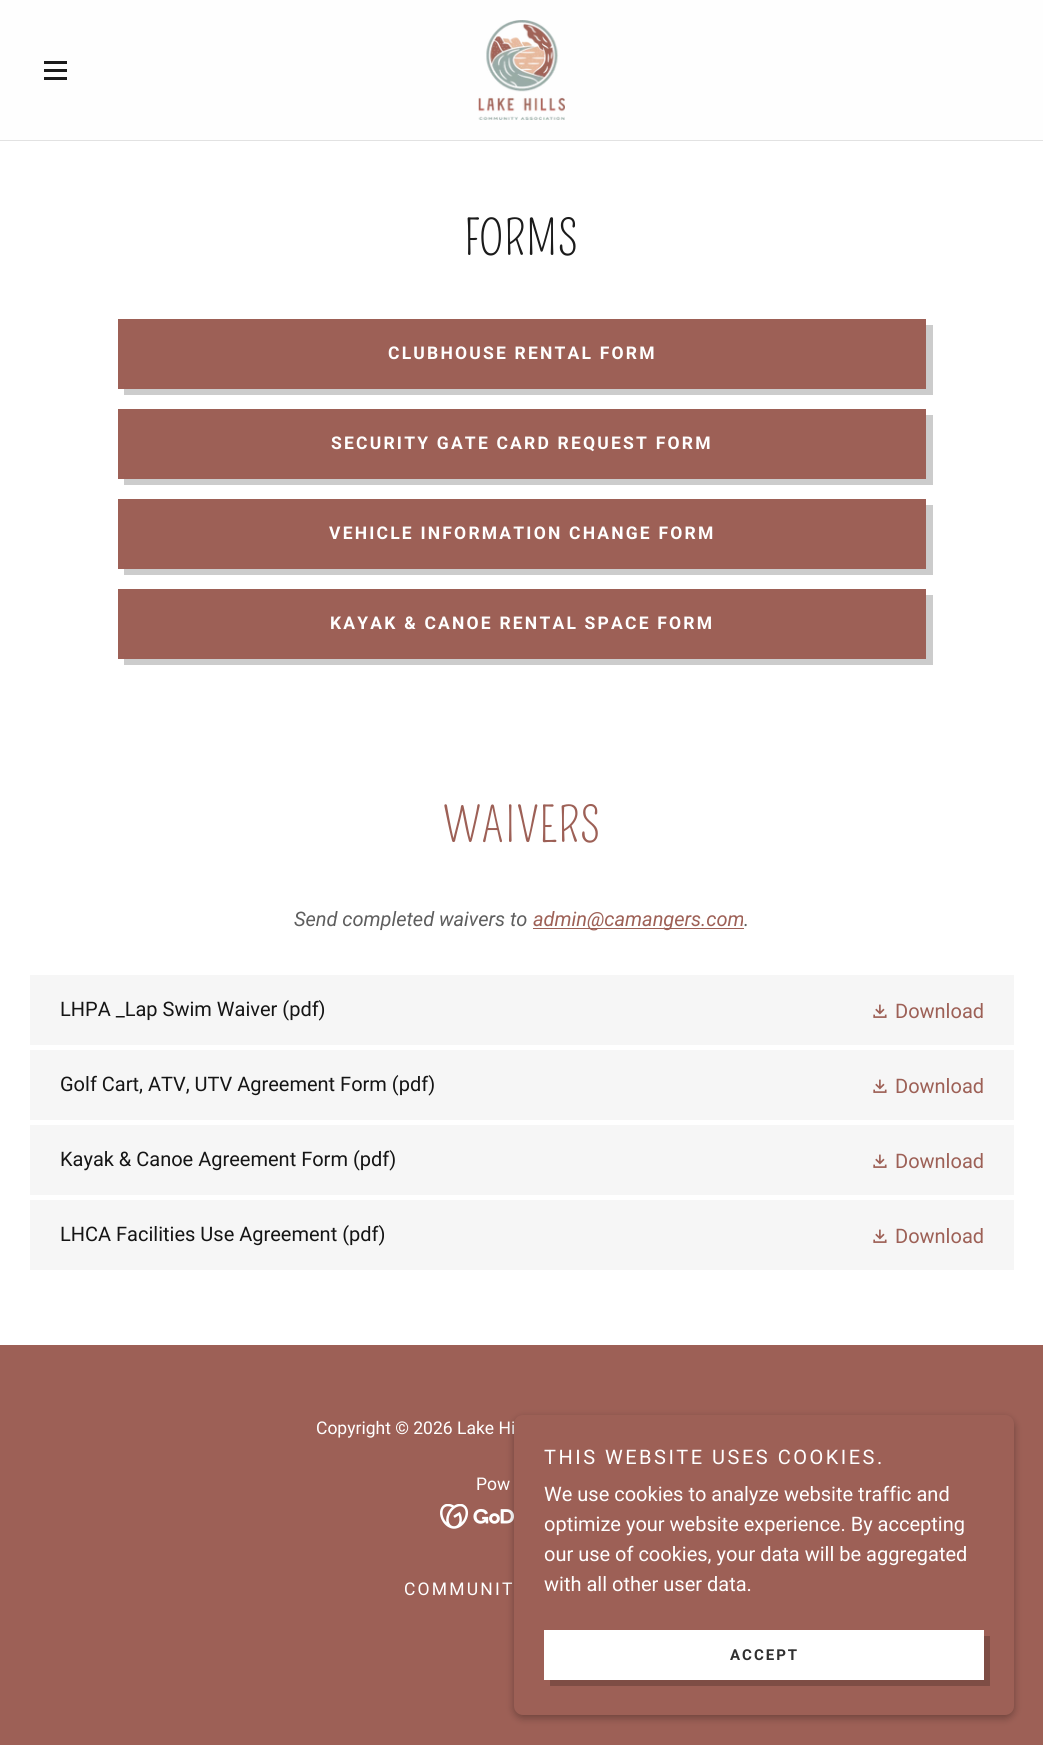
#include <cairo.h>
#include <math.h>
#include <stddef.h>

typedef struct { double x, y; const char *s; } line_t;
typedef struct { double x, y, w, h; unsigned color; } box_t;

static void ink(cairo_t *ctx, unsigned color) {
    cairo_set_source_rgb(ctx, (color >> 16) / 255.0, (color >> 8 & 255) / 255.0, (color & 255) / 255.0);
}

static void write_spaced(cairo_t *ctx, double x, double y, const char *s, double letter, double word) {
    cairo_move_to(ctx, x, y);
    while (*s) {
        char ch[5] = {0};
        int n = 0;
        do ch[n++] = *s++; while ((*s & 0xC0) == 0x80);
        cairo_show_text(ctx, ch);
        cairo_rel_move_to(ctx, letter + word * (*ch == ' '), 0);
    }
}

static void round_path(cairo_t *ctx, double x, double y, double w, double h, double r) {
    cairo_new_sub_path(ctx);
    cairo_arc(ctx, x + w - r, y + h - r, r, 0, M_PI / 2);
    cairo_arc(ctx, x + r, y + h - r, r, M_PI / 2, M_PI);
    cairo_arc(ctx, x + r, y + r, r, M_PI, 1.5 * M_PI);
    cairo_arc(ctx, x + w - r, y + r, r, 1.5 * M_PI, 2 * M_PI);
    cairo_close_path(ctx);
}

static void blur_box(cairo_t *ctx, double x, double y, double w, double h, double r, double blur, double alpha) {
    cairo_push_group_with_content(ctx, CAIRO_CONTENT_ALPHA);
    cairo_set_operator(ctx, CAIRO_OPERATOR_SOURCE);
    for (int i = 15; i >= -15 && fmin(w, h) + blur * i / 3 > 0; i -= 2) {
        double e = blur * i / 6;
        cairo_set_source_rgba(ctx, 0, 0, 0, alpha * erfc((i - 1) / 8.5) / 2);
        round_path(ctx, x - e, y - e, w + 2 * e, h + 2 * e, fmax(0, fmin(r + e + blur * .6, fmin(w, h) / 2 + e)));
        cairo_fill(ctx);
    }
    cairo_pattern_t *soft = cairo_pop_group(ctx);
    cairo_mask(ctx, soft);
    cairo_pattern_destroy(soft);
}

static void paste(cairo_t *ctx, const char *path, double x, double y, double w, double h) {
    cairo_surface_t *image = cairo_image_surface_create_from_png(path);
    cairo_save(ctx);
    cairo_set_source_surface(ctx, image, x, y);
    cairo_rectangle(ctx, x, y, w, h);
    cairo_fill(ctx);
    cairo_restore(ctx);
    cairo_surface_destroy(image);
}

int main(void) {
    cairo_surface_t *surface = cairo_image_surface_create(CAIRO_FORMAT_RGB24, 1043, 1745);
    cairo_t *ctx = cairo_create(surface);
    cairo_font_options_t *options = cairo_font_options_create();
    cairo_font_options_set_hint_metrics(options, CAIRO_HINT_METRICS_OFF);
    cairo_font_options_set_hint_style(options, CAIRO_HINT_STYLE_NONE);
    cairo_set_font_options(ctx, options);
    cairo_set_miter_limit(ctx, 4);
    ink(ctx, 0x9D6056);
    cairo_paint(ctx);
    {
        static const box_t items[] = {
            {0, 0, 1043, 140, 0xFEFEFE},
            {44, 61, 23, 3, 0x1B1B1B},
            {44, 69, 23, 3, 0x1B1B1B},
            {44, 77, 23, 3, 0x1B1B1B},
        };
        for (size_t i = 0; i < sizeof items / sizeof *items; i++) {
            ink(ctx, items[i].color);
            cairo_rectangle(ctx, items[i].x, items[i].y, items[i].w, items[i].h);
            cairo_fill(ctx);
        }
    }
    paste(ctx, "media/1.png", 478, 20, 87, 100);
    ink(ctx, 0xE2E2E2);
    cairo_rectangle(ctx, 0, 140, 1043, 1);
    cairo_fill(ctx);
    ink(ctx, 0xFFFFFF);
    cairo_rectangle(ctx, 0, 141, 1043, 1204);
    cairo_fill(ctx);
    cairo_select_font_face(ctx, "Pompiere", CAIRO_FONT_SLANT_NORMAL, CAIRO_FONT_WEIGHT_NORMAL);
    cairo_set_font_size(ctx, 47.5);
    ink(ctx, 0x1B1B1B);
    write_spaced(ctx, 464, 255, "FORMS", 1, 0);
    ink(ctx, 0x9D6056);
    cairo_rectangle(ctx, 118, 319, 808, 70);
    cairo_fill(ctx);
    ink(ctx, 0xCCCCCC);
    cairo_new_path(ctx);
    cairo_move_to(ctx, 124, 389);
    cairo_line_to(ctx, 124, 395);
    cairo_line_to(ctx, 933, 395);
    cairo_line_to(ctx, 933, 325);
    cairo_line_to(ctx, 926, 325);
    cairo_line_to(ctx, 926, 389);
    cairo_close_path(ctx);
    cairo_fill(ctx);
    cairo_select_font_face(ctx, "Roboto", CAIRO_FONT_SLANT_NORMAL, CAIRO_FONT_WEIGHT_BOLD);
    cairo_set_font_size(ctx, 17.5);
    ink(ctx, 0xFFFFFF);
    write_spaced(ctx, 388, 359, "CLUBHOUSE RENTAL FORM", 2.2, 0);
    ink(ctx, 0x9D6056);
    cairo_rectangle(ctx, 118, 409, 808, 70);
    cairo_fill(ctx);
    ink(ctx, 0xCCCCCC);
    cairo_new_path(ctx);
    cairo_move_to(ctx, 124, 479);
    cairo_line_to(ctx, 124, 485);
    cairo_line_to(ctx, 933, 485);
    cairo_line_to(ctx, 933, 415);
    cairo_line_to(ctx, 926, 415);
    cairo_line_to(ctx, 926, 479);
    cairo_close_path(ctx);
    cairo_fill(ctx);
    ink(ctx, 0xFFFFFF);
    write_spaced(ctx, 331, 449, "SECURITY GATE CARD REQUEST FORM", 2.2, 0);
    ink(ctx, 0x9D6056);
    cairo_rectangle(ctx, 118, 499, 808, 70);
    cairo_fill(ctx);
    ink(ctx, 0xCCCCCC);
    cairo_new_path(ctx);
    cairo_move_to(ctx, 124, 569);
    cairo_line_to(ctx, 124, 575);
    cairo_line_to(ctx, 933, 575);
    cairo_line_to(ctx, 933, 505);
    cairo_line_to(ctx, 926, 505);
    cairo_line_to(ctx, 926, 569);
    cairo_close_path(ctx);
    cairo_fill(ctx);
    ink(ctx, 0xFFFFFF);
    write_spaced(ctx, 329, 539, "VEHICLE INFORMATION CHANGE FORM", 2.2, 0);
    ink(ctx, 0x9D6056);
    cairo_rectangle(ctx, 118, 589, 808, 70);
    cairo_fill(ctx);
    ink(ctx, 0xCCCCCC);
    cairo_new_path(ctx);
    cairo_move_to(ctx, 124, 659);
    cairo_line_to(ctx, 124, 665);
    cairo_line_to(ctx, 933, 665);
    cairo_line_to(ctx, 933, 595);
    cairo_line_to(ctx, 926, 595);
    cairo_line_to(ctx, 926, 659);
    cairo_close_path(ctx);
    cairo_fill(ctx);
    ink(ctx, 0xFFFFFF);
    write_spaced(ctx, 330, 629, "KAYAK & CANOE RENTAL SPACE FORM", 2.2, 0);
    cairo_select_font_face(ctx, "Pompiere", CAIRO_FONT_SLANT_NORMAL, CAIRO_FONT_WEIGHT_NORMAL);
    cairo_set_font_size(ctx, 47.5);
    ink(ctx, 0x9D6056);
    write_spaced(ctx, 443, 842, "WAIVERS", 1, 0);
    cairo_select_font_face(ctx, "Roboto", CAIRO_FONT_SLANT_ITALIC, CAIRO_FONT_WEIGHT_NORMAL);
    cairo_set_font_size(ctx, 20);
    ink(ctx, 0x5E5E5E);
    cairo_move_to(ctx, 294, 926);
    cairo_show_text(ctx, "Send completed waivers to");
    ink(ctx, 0x9D6056);
    cairo_rectangle(ctx, 533, 928, 211, 1);
    cairo_fill(ctx);
    cairo_move_to(ctx, 533, 926);
    cairo_show_text(ctx, "admin@camangers.com");
    ink(ctx, 0x5E5E5E);
    cairo_move_to(ctx, 744, 926);
    cairo_show_text(ctx, ".");
    ink(ctx, 0xF6F6F6);
    cairo_rectangle(ctx, 30, 975, 984, 70);
    cairo_fill(ctx);
    cairo_select_font_face(ctx, "Roboto", CAIRO_FONT_SLANT_NORMAL, CAIRO_FONT_WEIGHT_NORMAL);
    ink(ctx, 0x151515);
    cairo_move_to(ctx, 60, 1016);
    cairo_show_text(ctx, "LHPA _Lap Swim Waiver (pdf)");
    paste(ctx, "media/2.png", 873, 1004, 14, 14);
    ink(ctx, 0x9D6056);
    cairo_move_to(ctx, 895, 1018);
    cairo_show_text(ctx, "Download");
    ink(ctx, 0xF6F6F6);
    cairo_rectangle(ctx, 30, 1050, 984, 70);
    cairo_fill(ctx);
    ink(ctx, 0x151515);
    cairo_move_to(ctx, 60, 1091);
    cairo_show_text(ctx, "Golf Cart, ATV, UTV Agreement Form (pdf)");
    paste(ctx, "media/2.png", 873, 1079, 14, 14);
    ink(ctx, 0x9D6056);
    cairo_move_to(ctx, 895, 1093);
    cairo_show_text(ctx, "Download");
    ink(ctx, 0xF6F6F6);
    cairo_rectangle(ctx, 30, 1125, 984, 70);
    cairo_fill(ctx);
    ink(ctx, 0x151515);
    cairo_move_to(ctx, 60, 1166);
    cairo_show_text(ctx, "Kayak & Canoe Agreement Form (pdf)");
    paste(ctx, "media/2.png", 873, 1154, 14, 14);
    ink(ctx, 0x9D6056);
    cairo_move_to(ctx, 895, 1168);
    cairo_show_text(ctx, "Download");
    ink(ctx, 0xF6F6F6);
    cairo_rectangle(ctx, 30, 1200, 984, 70);
    cairo_fill(ctx);
    ink(ctx, 0x151515);
    cairo_move_to(ctx, 60, 1241);
    cairo_show_text(ctx, "LHCA Facilities Use Agreement (pdf)");
    paste(ctx, "media/2.png", 873, 1229, 14, 14);
    ink(ctx, 0x9D6056);
    cairo_move_to(ctx, 895, 1243);
    cairo_show_text(ctx, "Download");
    cairo_set_font_size(ctx, 17.5);
    ink(ctx, 0xFFFFFF);
    cairo_move_to(ctx, 316, 1434);
    cairo_show_text(ctx, "Copyright © 2026 Lake Hi");
    cairo_move_to(ctx, 476, 1490);
    cairo_show_text(ctx, "Pow");
    paste(ctx, "media/3.png", 440, 1504, 74, 25);
    write_spaced(ctx, 404, 1595, "COMMUNIT", 2.2, 0);
    ink(ctx, 0x000000);
    blur_box(ctx, 514, 1418, 500, 300, 9, 4, 0.3);
    ink(ctx, 0x9D6056);
    round_path(ctx, 514, 1415, 500, 300, 9);
    cairo_fill(ctx);
    cairo_set_font_size(ctx, 20);
    ink(ctx, 0xFFFFFF);
    write_spaced(ctx, 544, 1464, "THIS WEBSITE USES COOKIES.", 2.5, 0);
    {
        static const line_t items[] = {
            {544, 1501, "We use cookies to analyze website traffic and"},
            {544, 1531, "optimize your website experience. By accepting"},
            {544, 1561, "our use of cookies, your data will be aggregated"},
            {544, 1591, "with all other user data."},
        };
        for (size_t i = 0; i < sizeof items / sizeof *items; i++) {
            cairo_move_to(ctx, items[i].x, items[i].y);
            cairo_show_text(ctx, items[i].s);
        }
    }
    cairo_rectangle(ctx, 544, 1630, 440, 50);
    cairo_fill(ctx);
    ink(ctx, 0x7E4D45);
    cairo_new_path(ctx);
    cairo_move_to(ctx, 550, 1680);
    cairo_line_to(ctx, 550, 1686);
    cairo_line_to(ctx, 990, 1686);
    cairo_line_to(ctx, 990, 1636);
    cairo_line_to(ctx, 984, 1636);
    cairo_line_to(ctx, 984, 1680);
    cairo_close_path(ctx);
    cairo_fill(ctx);
    cairo_select_font_face(ctx, "Roboto", CAIRO_FONT_SLANT_NORMAL, CAIRO_FONT_WEIGHT_BOLD);
    cairo_set_font_size(ctx, 15);
    ink(ctx, 0x303030);
    write_spaced(ctx, 730, 1660, "ACCEPT", 2, 0);
    cairo_surface_write_to_png(surface, "image.png");
    cairo_font_options_destroy(options);
    cairo_destroy(ctx);
    cairo_surface_destroy(surface);
    return 0;
}
